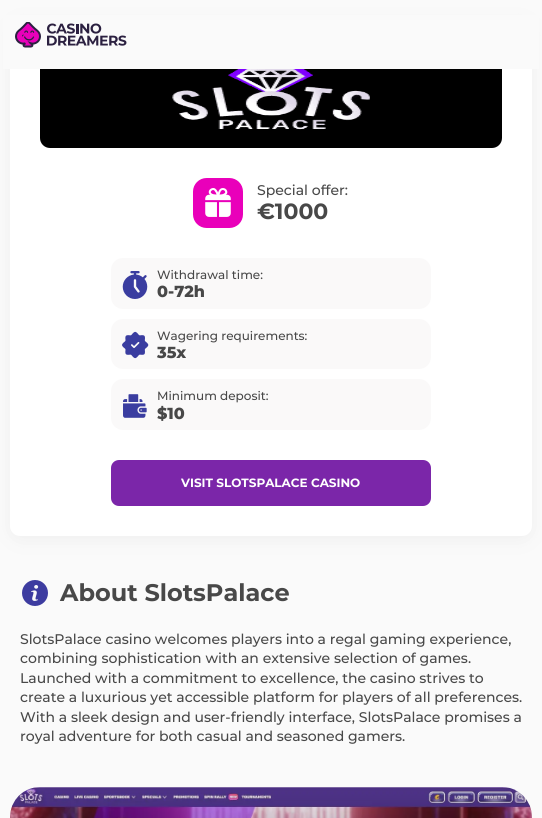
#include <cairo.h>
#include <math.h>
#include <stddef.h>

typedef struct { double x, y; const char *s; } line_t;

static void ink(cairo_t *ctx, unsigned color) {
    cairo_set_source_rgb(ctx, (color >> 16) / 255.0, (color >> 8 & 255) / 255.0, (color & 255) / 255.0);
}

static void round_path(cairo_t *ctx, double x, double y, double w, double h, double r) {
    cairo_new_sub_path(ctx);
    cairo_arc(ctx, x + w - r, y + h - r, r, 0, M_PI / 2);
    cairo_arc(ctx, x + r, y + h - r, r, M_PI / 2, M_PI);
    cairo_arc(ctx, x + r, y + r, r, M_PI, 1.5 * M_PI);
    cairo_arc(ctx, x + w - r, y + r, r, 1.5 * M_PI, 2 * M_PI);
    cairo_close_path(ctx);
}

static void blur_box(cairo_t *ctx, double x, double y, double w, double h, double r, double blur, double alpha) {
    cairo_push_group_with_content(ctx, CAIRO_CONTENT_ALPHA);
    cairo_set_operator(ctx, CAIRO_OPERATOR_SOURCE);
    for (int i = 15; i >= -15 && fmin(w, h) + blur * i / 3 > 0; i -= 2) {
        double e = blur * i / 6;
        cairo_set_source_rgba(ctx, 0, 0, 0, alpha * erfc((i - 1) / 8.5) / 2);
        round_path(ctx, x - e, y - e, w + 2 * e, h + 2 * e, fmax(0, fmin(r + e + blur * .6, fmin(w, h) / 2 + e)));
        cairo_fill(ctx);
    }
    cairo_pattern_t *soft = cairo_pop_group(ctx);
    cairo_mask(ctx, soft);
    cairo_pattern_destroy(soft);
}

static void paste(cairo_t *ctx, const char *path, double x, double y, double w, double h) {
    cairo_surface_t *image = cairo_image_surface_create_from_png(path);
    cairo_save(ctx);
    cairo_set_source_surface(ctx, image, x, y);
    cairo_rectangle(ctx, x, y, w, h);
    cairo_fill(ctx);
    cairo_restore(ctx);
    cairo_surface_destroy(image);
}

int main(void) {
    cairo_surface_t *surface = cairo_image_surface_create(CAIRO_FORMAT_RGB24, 542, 818);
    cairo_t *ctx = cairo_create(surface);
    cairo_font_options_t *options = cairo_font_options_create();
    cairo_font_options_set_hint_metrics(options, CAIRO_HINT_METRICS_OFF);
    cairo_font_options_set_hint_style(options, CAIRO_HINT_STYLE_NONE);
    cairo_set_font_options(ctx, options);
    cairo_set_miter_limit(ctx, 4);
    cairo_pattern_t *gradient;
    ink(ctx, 0xFAFAFA);
    cairo_paint(ctx);
    ink(ctx, 0x424242);
    blur_box(ctx, 10, 22, 522, 518, 10, 10, 0.06);
    ink(ctx, 0xFFFFFF);
    round_path(ctx, 10, 18, 522, 518, 10);
    cairo_fill(ctx);
    ink(ctx, 0x000000);
    round_path(ctx, 40, 48, 462, 100, 10);
    cairo_fill(ctx);
    ink(ctx, 0xFAFAFA);
    cairo_rectangle(ctx, 3, 15, 536, 54);
    cairo_fill(ctx);
    paste(ctx, "media/1.png", 15, 22, 112, 26);
    paste(ctx, "media/2.png", 172, 69, 198, 61);
    paste(ctx, "media/3.png", 193, 178, 50, 50);
    cairo_select_font_face(ctx, "Montserrat Medium", CAIRO_FONT_SLANT_NORMAL, CAIRO_FONT_WEIGHT_NORMAL);
    cairo_set_font_size(ctx, 14);
    ink(ctx, 0x484848);
    cairo_move_to(ctx, 257, 195);
    cairo_show_text(ctx, "Special offer:");
    cairo_select_font_face(ctx, "Montserrat", CAIRO_FONT_SLANT_NORMAL, CAIRO_FONT_WEIGHT_BOLD);
    cairo_set_font_size(ctx, 22);
    cairo_move_to(ctx, 257, 219);
    cairo_show_text(ctx, "€1000");
    ink(ctx, 0xFAF9F9);
    round_path(ctx, 111, 258, 320, 51, 12);
    cairo_fill(ctx);
    paste(ctx, "media/4.png", 122, 271, 26, 28);
    cairo_select_font_face(ctx, "Montserrat Medium", CAIRO_FONT_SLANT_NORMAL, CAIRO_FONT_WEIGHT_NORMAL);
    cairo_set_font_size(ctx, 12);
    ink(ctx, 0x484848);
    cairo_move_to(ctx, 157, 279);
    cairo_show_text(ctx, "Withdrawal time:");
    cairo_select_font_face(ctx, "Montserrat ExtraBold", CAIRO_FONT_SLANT_NORMAL, CAIRO_FONT_WEIGHT_NORMAL);
    cairo_set_font_size(ctx, 16);
    cairo_move_to(ctx, 157, 297);
    cairo_show_text(ctx, "0-72h");
    ink(ctx, 0xFAF9F9);
    round_path(ctx, 111, 319, 320, 50, 12);
    cairo_fill(ctx);
    paste(ctx, "media/5.png", 122, 331, 27, 28);
    cairo_select_font_face(ctx, "Montserrat Medium", CAIRO_FONT_SLANT_NORMAL, CAIRO_FONT_WEIGHT_NORMAL);
    cairo_set_font_size(ctx, 12);
    ink(ctx, 0x484848);
    cairo_move_to(ctx, 157, 340);
    cairo_show_text(ctx, "Wagering requirements:");
    cairo_select_font_face(ctx, "Montserrat ExtraBold", CAIRO_FONT_SLANT_NORMAL, CAIRO_FONT_WEIGHT_NORMAL);
    cairo_set_font_size(ctx, 16);
    cairo_move_to(ctx, 157, 358);
    cairo_show_text(ctx, "35x");
    ink(ctx, 0xFAF9F9);
    round_path(ctx, 111, 379, 320, 51, 12);
    cairo_fill(ctx);
    paste(ctx, "media/6.png", 123, 394, 24, 24);
    cairo_select_font_face(ctx, "Montserrat Medium", CAIRO_FONT_SLANT_NORMAL, CAIRO_FONT_WEIGHT_NORMAL);
    cairo_set_font_size(ctx, 12);
    ink(ctx, 0x484848);
    cairo_move_to(ctx, 157, 400);
    cairo_show_text(ctx, "Minimum deposit:");
    cairo_select_font_face(ctx, "Montserrat ExtraBold", CAIRO_FONT_SLANT_NORMAL, CAIRO_FONT_WEIGHT_NORMAL);
    cairo_set_font_size(ctx, 16);
    cairo_move_to(ctx, 157, 419);
    cairo_show_text(ctx, "$10");
    ink(ctx, 0x7B26A9);
    round_path(ctx, 111, 460, 320, 46, 8);
    cairo_fill(ctx);
    cairo_select_font_face(ctx, "Montserrat", CAIRO_FONT_SLANT_NORMAL, CAIRO_FONT_WEIGHT_BOLD);
    cairo_set_font_size(ctx, 12);
    ink(ctx, 0xFFFFFF);
    cairo_move_to(ctx, 181, 487);
    cairo_show_text(ctx, "VISIT SLOTSPALACE CASINO");
    paste(ctx, "media/7.png", 22, 580, 26, 26);
    cairo_set_font_size(ctx, 24);
    ink(ctx, 0x484848);
    cairo_move_to(ctx, 60, 601);
    cairo_show_text(ctx, "About SlotsPalace");
    cairo_select_font_face(ctx, "Montserrat Medium", CAIRO_FONT_SLANT_NORMAL, CAIRO_FONT_WEIGHT_NORMAL);
    cairo_set_font_size(ctx, 14);
    {
        static const line_t items[] = {
            {20, 644, "SlotsPalace casino welcomes players into a regal gaming experience,"},
            {20, 663, "combining sophistication with an extensive selection of games."},
            {20, 683, "Launched with a commitment to excellence, the casino strives to"},
            {20, 702, "create a luxurious yet accessible platform for players of all preferences."},
            {20, 722, "With a sleek design and user-friendly interface, SlotsPalace promises a"},
            {20, 741, "royal adventure for both casual and seasoned gamers."},
        };
        for (size_t i = 0; i < sizeof items / sizeof *items; i++) {
            cairo_move_to(ctx, items[i].x, items[i].y);
            cairo_show_text(ctx, items[i].s);
        }
    }
    paste(ctx, "media/8.png", 10, 787, 522, 31);
    gradient = cairo_pattern_create_linear(271, 787, 271, 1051);
    cairo_pattern_add_color_stop_rgba(gradient, 0, 0, 0, 0.035, 0.03);
    cairo_pattern_add_color_stop_rgba(gradient, 1, 0.035, 0.031, 0.141, 1);
    cairo_set_source(ctx, gradient);
    cairo_pattern_destroy(gradient);
    round_path(ctx, 10, 787, 522, 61, 30);
    cairo_fill(ctx);
    cairo_surface_write_to_png(surface, "image.png");
    cairo_font_options_destroy(options);
    cairo_destroy(ctx);
    cairo_surface_destroy(surface);
    return 0;
}
